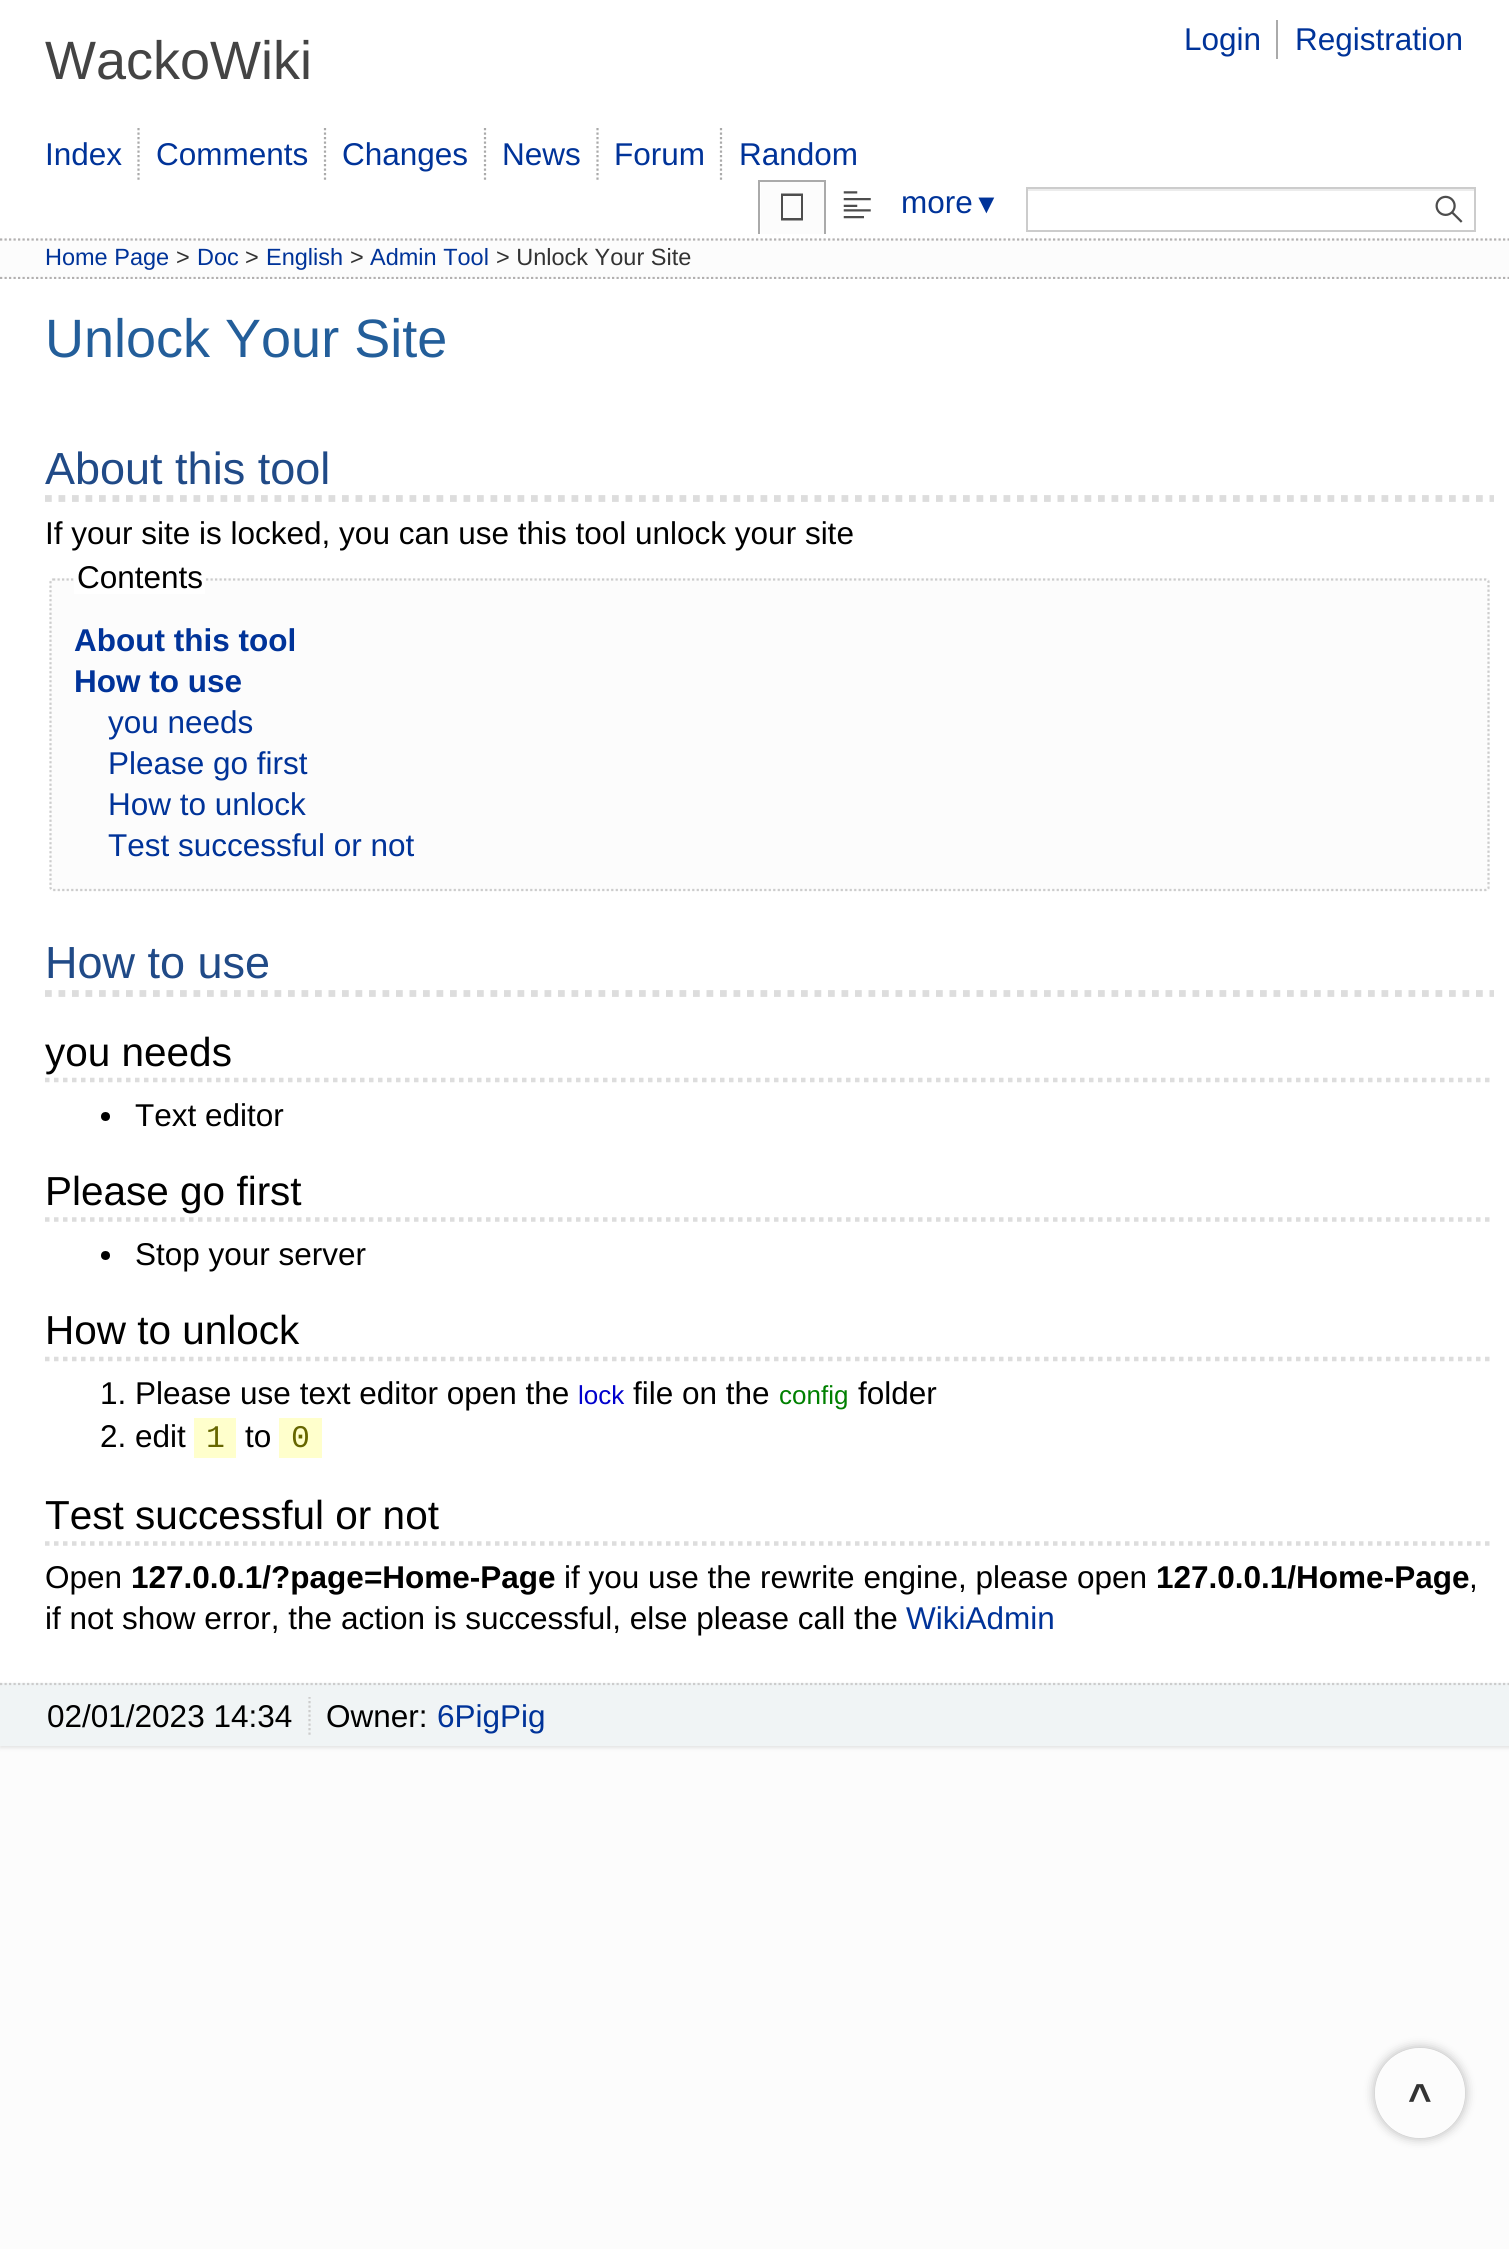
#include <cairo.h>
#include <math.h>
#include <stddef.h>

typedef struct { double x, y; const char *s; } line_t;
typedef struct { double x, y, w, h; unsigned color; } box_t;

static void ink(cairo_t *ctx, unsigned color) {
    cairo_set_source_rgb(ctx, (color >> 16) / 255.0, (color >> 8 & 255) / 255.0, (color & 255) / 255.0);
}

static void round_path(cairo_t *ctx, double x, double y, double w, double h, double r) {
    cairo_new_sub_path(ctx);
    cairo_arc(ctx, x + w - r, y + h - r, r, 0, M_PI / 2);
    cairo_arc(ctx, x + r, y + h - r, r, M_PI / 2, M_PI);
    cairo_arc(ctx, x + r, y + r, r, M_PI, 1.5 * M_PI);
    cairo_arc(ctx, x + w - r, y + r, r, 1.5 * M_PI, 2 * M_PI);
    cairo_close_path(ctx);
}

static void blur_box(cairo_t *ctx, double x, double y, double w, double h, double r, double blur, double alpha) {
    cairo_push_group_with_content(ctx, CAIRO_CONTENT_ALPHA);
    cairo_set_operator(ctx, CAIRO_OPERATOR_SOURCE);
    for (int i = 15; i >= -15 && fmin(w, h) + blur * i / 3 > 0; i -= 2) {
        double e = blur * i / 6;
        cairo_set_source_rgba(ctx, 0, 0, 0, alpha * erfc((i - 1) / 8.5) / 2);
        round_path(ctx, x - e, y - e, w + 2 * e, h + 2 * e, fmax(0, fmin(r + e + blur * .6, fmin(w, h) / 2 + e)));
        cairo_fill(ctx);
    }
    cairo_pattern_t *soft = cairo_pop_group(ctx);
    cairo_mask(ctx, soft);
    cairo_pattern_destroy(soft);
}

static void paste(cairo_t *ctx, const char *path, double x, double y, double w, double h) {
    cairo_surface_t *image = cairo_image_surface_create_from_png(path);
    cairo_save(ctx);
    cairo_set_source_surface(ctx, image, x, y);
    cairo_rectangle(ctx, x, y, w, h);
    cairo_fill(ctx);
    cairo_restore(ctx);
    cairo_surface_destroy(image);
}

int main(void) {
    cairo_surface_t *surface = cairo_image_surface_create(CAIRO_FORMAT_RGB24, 1509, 2249);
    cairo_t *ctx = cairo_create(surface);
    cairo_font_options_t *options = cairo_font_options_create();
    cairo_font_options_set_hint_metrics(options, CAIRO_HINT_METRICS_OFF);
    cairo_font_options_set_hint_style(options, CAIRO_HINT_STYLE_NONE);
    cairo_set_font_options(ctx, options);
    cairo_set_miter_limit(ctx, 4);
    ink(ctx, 0xFCFCFC);
    cairo_paint(ctx);
    ink(ctx, 0xFFFFFF);
    cairo_rectangle(ctx, 0, 0, 1509, 239);
    cairo_fill(ctx);
    cairo_select_font_face(ctx, "Liberation Sans", CAIRO_FONT_SLANT_NORMAL, CAIRO_FONT_WEIGHT_NORMAL);
    cairo_set_font_size(ctx, 54);
    ink(ctx, 0x444444);
    cairo_move_to(ctx, 45, 79);
    cairo_show_text(ctx, "WackoWiki");
    cairo_set_font_size(ctx, 31.5);
    ink(ctx, 0x003399);
    cairo_move_to(ctx, 1184, 50);
    cairo_show_text(ctx, "Login");
    ink(ctx, 0xAAAAAA);
    cairo_rectangle(ctx, 1276, 20, 2, 39);
    cairo_fill(ctx);
    ink(ctx, 0x003399);
    cairo_move_to(ctx, 1295, 50);
    cairo_show_text(ctx, "Registration");
    cairo_move_to(ctx, 45, 165);
    cairo_show_text(ctx, "Index");
    cairo_new_path(ctx);
    cairo_move_to(ctx, 138.5, 128);
    cairo_line_to(ctx, 138.5, 180);
    ink(ctx, 0xAAAAAA);
    cairo_set_line_width(ctx, 2.2);
    cairo_set_dash(ctx, (double[]){2.25, 2.25}, 2, 0);
    cairo_stroke(ctx);
    ink(ctx, 0x003399);
    cairo_move_to(ctx, 156, 165);
    cairo_show_text(ctx, "Comments");
    cairo_new_path(ctx);
    cairo_move_to(ctx, 325, 128);
    cairo_line_to(ctx, 325, 180);
    ink(ctx, 0xAAAAAA);
    cairo_stroke(ctx);
    ink(ctx, 0x003399);
    cairo_move_to(ctx, 342, 165);
    cairo_show_text(ctx, "Changes");
    cairo_new_path(ctx);
    cairo_move_to(ctx, 485, 128);
    cairo_line_to(ctx, 485, 180);
    ink(ctx, 0xAAAAAA);
    cairo_stroke(ctx);
    ink(ctx, 0x003399);
    cairo_move_to(ctx, 502, 165);
    cairo_show_text(ctx, "News");
    cairo_new_path(ctx);
    cairo_move_to(ctx, 597.5, 128);
    cairo_line_to(ctx, 597.5, 180);
    ink(ctx, 0xAAAAAA);
    cairo_stroke(ctx);
    ink(ctx, 0x003399);
    cairo_move_to(ctx, 614, 165);
    cairo_show_text(ctx, "Forum");
    cairo_new_path(ctx);
    cairo_move_to(ctx, 721, 128);
    cairo_line_to(ctx, 721, 180);
    ink(ctx, 0xAAAAAA);
    cairo_stroke(ctx);
    ink(ctx, 0x003399);
    cairo_move_to(ctx, 739, 165);
    cairo_show_text(ctx, "Random");
    {
        static const box_t items[] = {
            {761, 182, 63, 52, 0xFCFCFC},
            {758, 180, 68, 2, 0xAAAAAA},
            {824, 180, 2, 54, 0xAAAAAA},
            {758, 180, 2, 54, 0xAAAAAA},
        };
        for (size_t i = 0; i < sizeof items / sizeof *items; i++) {
            ink(ctx, items[i].color);
            cairo_rectangle(ctx, items[i].x, items[i].y, items[i].w, items[i].h);
            cairo_fill(ctx);
        }
    }
    ink(ctx, 0x4D4D4D);
    cairo_set_fill_rule(ctx, CAIRO_FILL_RULE_EVEN_ODD);
    cairo_new_path(ctx);
    cairo_move_to(ctx, 781, 193.5);
    cairo_line_to(ctx, 781, 220.5);
    cairo_line_to(ctx, 803, 220.5);
    cairo_line_to(ctx, 803, 193.5);
    cairo_close_path(ctx);
    cairo_move_to(ctx, 783, 196);
    cairo_line_to(ctx, 801, 196);
    cairo_line_to(ctx, 801, 218);
    cairo_line_to(ctx, 783, 218);
    cairo_close_path(ctx);
    cairo_fill(ctx);
    paste(ctx, "media/1.png", 843, 191, 28, 28);
    ink(ctx, 0x003399);
    cairo_move_to(ctx, 901, 213);
    cairo_show_text(ctx, "more");
    cairo_set_font_size(ctx, 27);
    cairo_move_to(ctx, 973, 213);
    cairo_show_text(ctx, "▼");
    ink(ctx, 0xECECEC);
    cairo_rectangle(ctx, 1028, 189, 446, 2);
    cairo_fill(ctx);
    cairo_rectangle(ctx, 1027, 188, 448, 43);
    ink(ctx, 0xCCCCCC);
    cairo_set_line_width(ctx, 2);
    cairo_set_dash(ctx, NULL, 0, 0);
    cairo_stroke(ctx);
    paste(ctx, "media/2.png", 1435, 195, 28, 28);
    cairo_new_path(ctx);
    cairo_move_to(ctx, 0, 239.5);
    cairo_line_to(ctx, 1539, 239.5);
    ink(ctx, 0xB2B0B0);
    cairo_set_line_width(ctx, 2.2);
    cairo_set_dash(ctx, (double[]){2.25, 2.25}, 2, 0);
    cairo_stroke(ctx);
    cairo_new_path(ctx);
    cairo_move_to(ctx, 0, 278);
    cairo_line_to(ctx, 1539, 278);
    cairo_stroke(ctx);
    cairo_set_font_size(ctx, 23.5);
    ink(ctx, 0x003399);
    cairo_move_to(ctx, 45, 265);
    cairo_show_text(ctx, "Home Page");
    ink(ctx, 0x333333);
    cairo_move_to(ctx, 176, 265);
    cairo_show_text(ctx, ">");
    ink(ctx, 0x003399);
    cairo_move_to(ctx, 197, 265);
    cairo_show_text(ctx, "Doc");
    ink(ctx, 0x333333);
    cairo_move_to(ctx, 245, 265);
    cairo_show_text(ctx, ">");
    ink(ctx, 0x003399);
    cairo_move_to(ctx, 266, 265);
    cairo_show_text(ctx, "English");
    ink(ctx, 0x333333);
    cairo_move_to(ctx, 350, 265);
    cairo_show_text(ctx, ">");
    ink(ctx, 0x003399);
    cairo_move_to(ctx, 370, 265);
    cairo_show_text(ctx, "Admin Tool");
    ink(ctx, 0x333333);
    cairo_move_to(ctx, 496, 265);
    cairo_show_text(ctx, "> Unlock Your Site");
    cairo_save(ctx);
    cairo_new_path(ctx);
    cairo_move_to(ctx, 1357, 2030);
    cairo_line_to(ctx, 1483, 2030);
    cairo_line_to(ctx, 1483, 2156);
    cairo_line_to(ctx, 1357, 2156);
    cairo_close_path(ctx);
    cairo_move_to(ctx, 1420, 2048);
    cairo_curve_to(ctx, 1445, 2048, 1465, 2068, 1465, 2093);
    cairo_curve_to(ctx, 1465, 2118, 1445, 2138, 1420, 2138);
    cairo_curve_to(ctx, 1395, 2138, 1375, 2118, 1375, 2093);
    cairo_curve_to(ctx, 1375, 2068, 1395, 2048, 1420, 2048);
    cairo_close_path(ctx);
    cairo_clip(ctx);
    ink(ctx, 0x000000);
    blur_box(ctx, 1375, 2048, 90, 90, 45, 5.5, 0.3);
    cairo_restore(ctx);
    cairo_select_font_face(ctx, "Liberation Sans", CAIRO_FONT_SLANT_NORMAL, CAIRO_FONT_WEIGHT_BOLD);
    cairo_set_font_size(ctx, 40.5);
    cairo_move_to(ctx, 1408, 2112);
    cairo_show_text(ctx, "^");
    ink(ctx, 0xFFFFFF);
    cairo_rectangle(ctx, 0, 279, 1509, 1404);
    cairo_fill(ctx);
    cairo_select_font_face(ctx, "Liberation Sans", CAIRO_FONT_SLANT_NORMAL, CAIRO_FONT_WEIGHT_NORMAL);
    cairo_set_font_size(ctx, 54);
    ink(ctx, 0x235E9A);
    cairo_move_to(ctx, 45, 357);
    cairo_show_text(ctx, "Unlock Your Site");
    cairo_new_path(ctx);
    cairo_move_to(ctx, 45, 498.5);
    cairo_line_to(ctx, 1494, 498.5);
    ink(ctx, 0xDDDDDD);
    cairo_set_line_width(ctx, 6.8);
    cairo_set_dash(ctx, (double[]){6.75, 6.75}, 2, 0);
    cairo_stroke(ctx);
    cairo_set_font_size(ctx, 45);
    ink(ctx, 0x204A87);
    cairo_move_to(ctx, 45, 484);
    cairo_show_text(ctx, "About this tool");
    cairo_set_font_size(ctx, 31.5);
    ink(ctx, 0x000000);
    cairo_move_to(ctx, 45, 544);
    cairo_show_text(ctx, "If your site is locked, you can use this tool unlock your site");
    ink(ctx, 0xFCFCFC);
    round_path(ctx, 50, 578, 1440, 313, 3);
    cairo_fill(ctx);
    cairo_new_path(ctx);
    cairo_move_to(ctx, 53, 579.5);
    cairo_line_to(ctx, 1486, 579.5);
    cairo_curve_to(ctx, 1487.5, 579.5, 1488.5, 580.5, 1488.5, 582);
    cairo_line_to(ctx, 1488.5, 887.5);
    cairo_curve_to(ctx, 1488.5, 889, 1487.5, 890, 1486, 890);
    cairo_line_to(ctx, 53, 890);
    cairo_curve_to(ctx, 51.5, 890, 50.5, 889, 50.5, 887.5);
    cairo_line_to(ctx, 50.5, 582);
    cairo_curve_to(ctx, 50.5, 580.5, 51.5, 579.5, 53, 579.5);
    cairo_close_path(ctx);
    ink(ctx, 0xCCCCCC);
    cairo_set_line_width(ctx, 2.2);
    cairo_set_dash(ctx, (double[]){2.25, 2.25}, 2, 0);
    cairo_stroke(ctx);
    ink(ctx, 0xFFFFFF);
    cairo_rectangle(ctx, 74, 578, 131, 16);
    cairo_fill(ctx);
    ink(ctx, 0x000000);
    cairo_move_to(ctx, 77, 588);
    cairo_show_text(ctx, "Contents");
    cairo_select_font_face(ctx, "Liberation Sans", CAIRO_FONT_SLANT_NORMAL, CAIRO_FONT_WEIGHT_BOLD);
    ink(ctx, 0x003399);
    cairo_move_to(ctx, 74, 651);
    cairo_show_text(ctx, "About this tool");
    cairo_move_to(ctx, 74, 692);
    cairo_show_text(ctx, "How to use");
    cairo_select_font_face(ctx, "Liberation Sans", CAIRO_FONT_SLANT_NORMAL, CAIRO_FONT_WEIGHT_NORMAL);
    {
        static const line_t items[] = {
            {108, 733, "you needs"},
            {108, 774, "Please go first"},
            {108, 815, "How to unlock"},
            {108, 856, "Test successful or not"},
        };
        for (size_t i = 0; i < sizeof items / sizeof *items; i++) {
            cairo_move_to(ctx, items[i].x, items[i].y);
            cairo_show_text(ctx, items[i].s);
        }
    }
    cairo_new_path(ctx);
    cairo_move_to(ctx, 45, 993.5);
    cairo_line_to(ctx, 1494, 993.5);
    ink(ctx, 0xDDDDDD);
    cairo_set_line_width(ctx, 6.8);
    cairo_set_dash(ctx, (double[]){6.75, 6.75}, 2, 0);
    cairo_stroke(ctx);
    cairo_set_font_size(ctx, 45);
    ink(ctx, 0x204A87);
    cairo_move_to(ctx, 45, 978);
    cairo_show_text(ctx, "How to use");
    cairo_new_path(ctx);
    cairo_move_to(ctx, 45, 1080);
    cairo_line_to(ctx, 1494, 1080);
    ink(ctx, 0xDDDDDD);
    cairo_set_line_width(ctx, 4.5);
    cairo_set_dash(ctx, (double[]){4.5, 4.5}, 2, 0);
    cairo_stroke(ctx);
    cairo_set_font_size(ctx, 40.5);
    ink(ctx, 0x000000);
    cairo_move_to(ctx, 45, 1066);
    cairo_show_text(ctx, "you needs");
    cairo_new_path(ctx);
    cairo_arc(ctx, 105.5, 1116.5, 4.5, 0, 2 * M_PI);
    cairo_fill(ctx);
    cairo_set_font_size(ctx, 31.5);
    cairo_move_to(ctx, 135, 1126);
    cairo_show_text(ctx, "Text editor");
    cairo_new_path(ctx);
    cairo_move_to(ctx, 45, 1219.5);
    cairo_line_to(ctx, 1494, 1219.5);
    ink(ctx, 0xDDDDDD);
    cairo_stroke(ctx);
    cairo_set_font_size(ctx, 40.5);
    ink(ctx, 0x000000);
    cairo_move_to(ctx, 45, 1205);
    cairo_show_text(ctx, "Please go first");
    cairo_new_path(ctx);
    cairo_arc(ctx, 105.5, 1255.5, 4.5, 0, 2 * M_PI);
    cairo_fill(ctx);
    cairo_set_font_size(ctx, 31.5);
    cairo_move_to(ctx, 135, 1265);
    cairo_show_text(ctx, "Stop your server");
    cairo_new_path(ctx);
    cairo_move_to(ctx, 45, 1359);
    cairo_line_to(ctx, 1494, 1359);
    ink(ctx, 0xDDDDDD);
    cairo_stroke(ctx);
    cairo_set_font_size(ctx, 40.5);
    ink(ctx, 0x000000);
    cairo_move_to(ctx, 45, 1344);
    cairo_show_text(ctx, "How to unlock");
    cairo_set_font_size(ctx, 31.5);
    cairo_move_to(ctx, 100, 1404);
    cairo_show_text(ctx, "1. Please use text editor open the");
    cairo_set_font_size(ctx, 26);
    ink(ctx, 0x0000CC);
    cairo_move_to(ctx, 578, 1404);
    cairo_show_text(ctx, "lock");
    cairo_set_font_size(ctx, 31.5);
    ink(ctx, 0x000000);
    cairo_move_to(ctx, 633, 1404);
    cairo_show_text(ctx, "file on the");
    cairo_set_font_size(ctx, 26);
    ink(ctx, 0x008000);
    cairo_move_to(ctx, 779, 1404);
    cairo_show_text(ctx, "config");
    cairo_set_font_size(ctx, 31.5);
    ink(ctx, 0x000000);
    cairo_move_to(ctx, 858, 1404);
    cairo_show_text(ctx, "folder");
    cairo_move_to(ctx, 100, 1447);
    cairo_show_text(ctx, "2. edit");
    ink(ctx, 0xFFFFCC);
    cairo_rectangle(ctx, 194, 1418, 42, 40);
    cairo_fill(ctx);
    cairo_select_font_face(ctx, "Liberation Mono", CAIRO_FONT_SLANT_NORMAL, CAIRO_FONT_WEIGHT_NORMAL);
    ink(ctx, 0x666600);
    cairo_move_to(ctx, 206, 1447);
    cairo_show_text(ctx, "1");
    cairo_select_font_face(ctx, "Liberation Sans", CAIRO_FONT_SLANT_NORMAL, CAIRO_FONT_WEIGHT_NORMAL);
    ink(ctx, 0x000000);
    cairo_move_to(ctx, 245, 1447);
    cairo_show_text(ctx, "to");
    ink(ctx, 0xFFFFCC);
    cairo_rectangle(ctx, 279, 1418, 43, 40);
    cairo_fill(ctx);
    cairo_select_font_face(ctx, "Liberation Mono", CAIRO_FONT_SLANT_NORMAL, CAIRO_FONT_WEIGHT_NORMAL);
    ink(ctx, 0x666600);
    cairo_move_to(ctx, 291, 1447);
    cairo_show_text(ctx, "0");
    cairo_new_path(ctx);
    cairo_move_to(ctx, 45, 1543.5);
    cairo_line_to(ctx, 1494, 1543.5);
    ink(ctx, 0xDDDDDD);
    cairo_stroke(ctx);
    cairo_select_font_face(ctx, "Liberation Sans", CAIRO_FONT_SLANT_NORMAL, CAIRO_FONT_WEIGHT_NORMAL);
    cairo_set_font_size(ctx, 40.5);
    ink(ctx, 0x000000);
    cairo_move_to(ctx, 45, 1529);
    cairo_show_text(ctx, "Test successful or not");
    cairo_set_font_size(ctx, 31.5);
    cairo_move_to(ctx, 45, 1588);
    cairo_show_text(ctx, "Open");
    cairo_select_font_face(ctx, "Liberation Sans", CAIRO_FONT_SLANT_NORMAL, CAIRO_FONT_WEIGHT_BOLD);
    cairo_move_to(ctx, 131, 1588);
    cairo_show_text(ctx, "127.0.0.1/?page=Home-Page");
    cairo_select_font_face(ctx, "Liberation Sans", CAIRO_FONT_SLANT_NORMAL, CAIRO_FONT_WEIGHT_NORMAL);
    cairo_move_to(ctx, 564, 1588);
    cairo_show_text(ctx, "if you use the rewrite engine, please open");
    cairo_select_font_face(ctx, "Liberation Sans", CAIRO_FONT_SLANT_NORMAL, CAIRO_FONT_WEIGHT_BOLD);
    cairo_move_to(ctx, 1156, 1588);
    cairo_show_text(ctx, "127.0.0.1/Home-Page");
    cairo_select_font_face(ctx, "Liberation Sans", CAIRO_FONT_SLANT_NORMAL, CAIRO_FONT_WEIGHT_NORMAL);
    cairo_move_to(ctx, 1469, 1588);
    cairo_show_text(ctx, ",");
    cairo_move_to(ctx, 45, 1629);
    cairo_show_text(ctx, "if not show error, the action is successful, else please call the");
    ink(ctx, 0x003399);
    cairo_move_to(ctx, 906, 1629);
    cairo_show_text(ctx, "WikiAdmin");
    ink(ctx, 0x000000);
    blur_box(ctx, 0, 1685, 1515, 63, 0, 2, 0.1);
    ink(ctx, 0xF0F4F5);
    cairo_rectangle(ctx, 0, 1683, 1509, 63);
    cairo_fill(ctx);
    cairo_new_path(ctx);
    cairo_move_to(ctx, 0, 1684);
    cairo_line_to(ctx, 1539, 1684);
    ink(ctx, 0xCCCCCC);
    cairo_set_line_width(ctx, 2.2);
    cairo_set_dash(ctx, (double[]){2.25, 2.25}, 2, 0);
    cairo_stroke(ctx);
    ink(ctx, 0x000000);
    cairo_move_to(ctx, 47, 1727);
    cairo_show_text(ctx, "02/01/2023 14:34");
    cairo_save(ctx);
    cairo_set_fill_rule(ctx, CAIRO_FILL_RULE_WINDING);
    cairo_rectangle(ctx, 45, 1697, 1449, 38);
    cairo_clip(ctx);
    cairo_new_path(ctx);
    cairo_move_to(ctx, 309.5, 1696.5);
    cairo_line_to(ctx, 309.5, 1735);
    ink(ctx, 0xCCCCCC);
    cairo_stroke(ctx);
    cairo_restore(ctx);
    cairo_move_to(ctx, 326, 1727);
    cairo_show_text(ctx, "Owner:");
    ink(ctx, 0x003399);
    cairo_move_to(ctx, 437, 1727);
    cairo_show_text(ctx, "6PigPig");
    cairo_surface_write_to_png(surface, "image.png");
    cairo_font_options_destroy(options);
    cairo_destroy(ctx);
    cairo_surface_destroy(surface);
    return 0;
}
